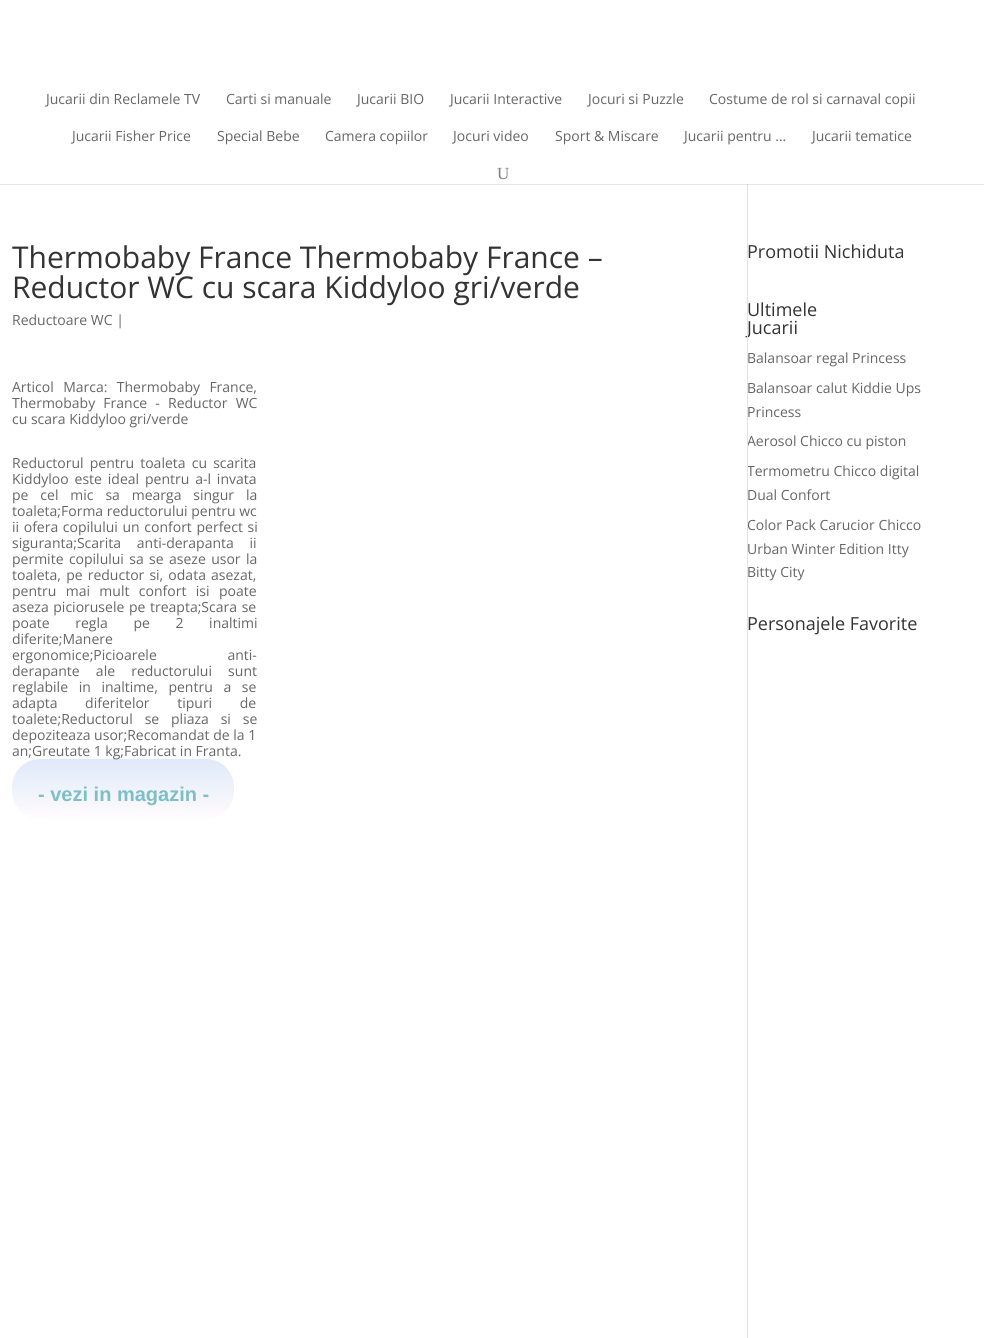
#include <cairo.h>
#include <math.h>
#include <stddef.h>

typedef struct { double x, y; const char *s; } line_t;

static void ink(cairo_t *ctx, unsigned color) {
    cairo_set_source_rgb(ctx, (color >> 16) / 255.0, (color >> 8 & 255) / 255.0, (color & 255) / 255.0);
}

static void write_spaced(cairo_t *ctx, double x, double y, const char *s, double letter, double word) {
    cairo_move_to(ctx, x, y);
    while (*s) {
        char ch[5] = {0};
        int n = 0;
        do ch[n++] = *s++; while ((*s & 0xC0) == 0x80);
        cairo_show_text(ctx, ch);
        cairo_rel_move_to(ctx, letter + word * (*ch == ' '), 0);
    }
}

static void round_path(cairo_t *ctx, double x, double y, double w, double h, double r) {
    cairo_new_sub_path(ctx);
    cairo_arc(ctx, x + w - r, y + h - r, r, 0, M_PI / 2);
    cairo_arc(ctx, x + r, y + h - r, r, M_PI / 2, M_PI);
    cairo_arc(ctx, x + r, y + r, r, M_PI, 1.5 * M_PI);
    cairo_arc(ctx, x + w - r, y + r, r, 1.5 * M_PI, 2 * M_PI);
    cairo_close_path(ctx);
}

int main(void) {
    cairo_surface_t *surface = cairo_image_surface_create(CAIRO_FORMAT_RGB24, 984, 1338);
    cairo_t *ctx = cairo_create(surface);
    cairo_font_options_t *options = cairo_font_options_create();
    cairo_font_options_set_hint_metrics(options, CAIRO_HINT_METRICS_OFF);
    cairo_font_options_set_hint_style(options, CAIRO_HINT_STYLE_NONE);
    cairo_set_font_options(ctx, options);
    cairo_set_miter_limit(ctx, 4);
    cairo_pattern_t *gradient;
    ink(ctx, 0xFFFFFF);
    cairo_paint(ctx);
    ink(ctx, 0xE6E6E6);
    cairo_rectangle(ctx, 0, 184, 984, 1);
    cairo_fill(ctx);
    cairo_select_font_face(ctx, "Open Sans", CAIRO_FONT_SLANT_NORMAL, CAIRO_FONT_WEIGHT_NORMAL);
    cairo_set_font_size(ctx, 14);
    ink(ctx, 0x666666);
    {
        static const line_t items[] = {
            {46, 104, "Jucarii din Reclamele TV"},
            {226, 104, "Carti si manuale"},
            {357, 104, "Jucarii BIO"},
            {450, 104, "Jucarii Interactive"},
            {588, 104, "Jocuri si Puzzle"},
            {709, 104, "Costume de rol si carnaval copii"},
            {72, 141, "Jucarii Fisher Price"},
            {217, 141, "Special Bebe"},
            {325, 141, "Camera copiilor"},
            {453, 141, "Jocuri video"},
            {555, 141, "Sport & Miscare"},
            {684, 141, "Jucarii pentru …"},
            {812, 141, "Jucarii tematice"},
        };
        for (size_t i = 0; i < sizeof items / sizeof *items; i++) {
            cairo_move_to(ctx, items[i].x, items[i].y);
            cairo_show_text(ctx, items[i].s);
        }
    }
    cairo_select_font_face(ctx, "Liberation Serif", CAIRO_FONT_SLANT_NORMAL, CAIRO_FONT_WEIGHT_NORMAL);
    cairo_set_font_size(ctx, 17);
    ink(ctx, 0x808080);
    cairo_move_to(ctx, 497, 179);
    cairo_show_text(ctx, "U");
    cairo_select_font_face(ctx, "Open Sans", CAIRO_FONT_SLANT_NORMAL, CAIRO_FONT_WEIGHT_NORMAL);
    cairo_set_font_size(ctx, 18);
    ink(ctx, 0x333333);
    cairo_move_to(ctx, 747, 334);
    cairo_show_text(ctx, "Jucarii");
    cairo_set_font_size(ctx, 14);
    ink(ctx, 0x666666);
    {
        static const line_t items[] = {
            {747, 446, "Aerosol Chicco cu piston"},
            {747, 476, "Termometru Chicco digital"},
            {747, 530, "Color Pack Carucior Chicco"},
        };
        for (size_t i = 0; i < sizeof items / sizeof *items; i++) {
            cairo_move_to(ctx, items[i].x, items[i].y);
            cairo_show_text(ctx, items[i].s);
        }
    }
    ink(ctx, 0xE2E2E2);
    cairo_rectangle(ctx, 747, 184, 1, 1154);
    cairo_fill(ctx);
    ink(ctx, 0xCBCBCB);
    cairo_rectangle(ctx, 747, 184, 1, 1);
    cairo_fill(ctx);
    cairo_set_font_size(ctx, 30);
    ink(ctx, 0x333333);
    cairo_move_to(ctx, 12, 268);
    cairo_show_text(ctx, "Thermobaby France Thermobaby France –");
    cairo_move_to(ctx, 12, 298);
    cairo_show_text(ctx, "Reductor WC cu scara Kiddyloo gri/verde");
    cairo_set_font_size(ctx, 14);
    ink(ctx, 0x666666);
    cairo_move_to(ctx, 12, 325);
    cairo_show_text(ctx, "Reductoare WC |");
    write_spaced(ctx, 12, 392, "Articol Marca: Thermobaby France,", 0, 5.75);
    write_spaced(ctx, 12, 408, "Thermobaby France - Reductor WC", 0, 4.5);
    cairo_move_to(ctx, 12, 424);
    cairo_show_text(ctx, "cu scara Kiddyloo gri/verde");
    write_spaced(ctx, 12, 468, "Reductorul pentru toaleta cu scarita", 0, 2.5);
    write_spaced(ctx, 12, 484, "Kiddyloo este ideal pentru a-l invata", 0, 2.25);
    write_spaced(ctx, 12, 500, "pe cel mic sa mearga singur la", 0, 8.25);
    cairo_move_to(ctx, 12, 516);
    cairo_show_text(ctx, "toaleta;Forma reductorului pentru wc");
    write_spaced(ctx, 12, 532, "ii ofera copilului un confort perfect si", 0, 1);
    write_spaced(ctx, 12, 548, "siguranta;Scarita anti-derapanta ii", 0, 12);
    write_spaced(ctx, 12, 564, "permite copilului sa se aseze usor la", 0, 1.75);
    write_spaced(ctx, 12, 580, "toaleta, pe reductor si, odata asezat,", 0, 1.5);
    write_spaced(ctx, 12, 596, "pentru mai mult confort isi poate", 0, 5.75);
    write_spaced(ctx, 12, 612, "aseza piciorusele pe treapta;Scara se", 0, 1);
    write_spaced(ctx, 12, 628, "poate regla pe 2 inaltimi", 0, 22);
    cairo_move_to(ctx, 12, 644);
    cairo_show_text(ctx, "diferite;Manere");
    write_spaced(ctx, 12, 660, "ergonomice;Picioarele anti-", 0, 67);
    write_spaced(ctx, 12, 676, "derapante ale reductorului sunt", 0, 12.5);
    write_spaced(ctx, 12, 692, "reglabile in inaltime, pentru a se", 0, 7);
    write_spaced(ctx, 12, 708, "adapta diferitelor tipuri de", 0, 24);
    write_spaced(ctx, 12, 724, "toalete;Reductorul se pliaza si se", 0, 8.25);
    cairo_move_to(ctx, 12, 740);
    cairo_show_text(ctx, "depoziteaza usor;Recomandat de la 1");
    gradient = cairo_pattern_create_linear(123, 759, 123, 819);
    cairo_pattern_add_color_stop_rgba(gradient, 0, 0.875, 0.914, 0.98, 1);
    cairo_pattern_add_color_stop_rgba(gradient, 1, 1, 0.988, 0.988, 1);
    cairo_set_source(ctx, gradient);
    cairo_pattern_destroy(gradient);
    round_path(ctx, 12, 759, 222, 60, 28);
    cairo_fill(ctx);
    ink(ctx, 0x666666);
    cairo_move_to(ctx, 12, 756);
    cairo_show_text(ctx, "an;Greutate 1 kg;Fabricat in Franta.");
    cairo_select_font_face(ctx, "Liberation Sans", CAIRO_FONT_SLANT_NORMAL, CAIRO_FONT_WEIGHT_BOLD);
    cairo_set_font_size(ctx, 20);
    ink(ctx, 0x7EBEC5);
    cairo_move_to(ctx, 38, 801);
    cairo_show_text(ctx, "- vezi in magazin -");
    cairo_select_font_face(ctx, "Open Sans", CAIRO_FONT_SLANT_NORMAL, CAIRO_FONT_WEIGHT_NORMAL);
    cairo_set_font_size(ctx, 18);
    ink(ctx, 0x333333);
    cairo_move_to(ctx, 747, 258);
    cairo_show_text(ctx, "Promotii Nichiduta");
    cairo_move_to(ctx, 747, 316);
    cairo_show_text(ctx, "Ultimele");
    cairo_set_font_size(ctx, 14);
    ink(ctx, 0x666666);
    {
        static const line_t items[] = {
            {747, 363, "Balansoar regal Princess"},
            {747, 393, "Balansoar calut Kiddie Ups"},
            {747, 417, "Princess"},
            {747, 500, "Dual Confort"},
            {747, 554, "Urban Winter Edition Itty"},
            {747, 577, "Bitty City"},
        };
        for (size_t i = 0; i < sizeof items / sizeof *items; i++) {
            cairo_move_to(ctx, items[i].x, items[i].y);
            cairo_show_text(ctx, items[i].s);
        }
    }
    cairo_set_font_size(ctx, 18);
    ink(ctx, 0x333333);
    cairo_move_to(ctx, 747, 630);
    cairo_show_text(ctx, "Personajele Favorite");
    cairo_surface_write_to_png(surface, "image.png");
    cairo_font_options_destroy(options);
    cairo_destroy(ctx);
    cairo_surface_destroy(surface);
    return 0;
}
